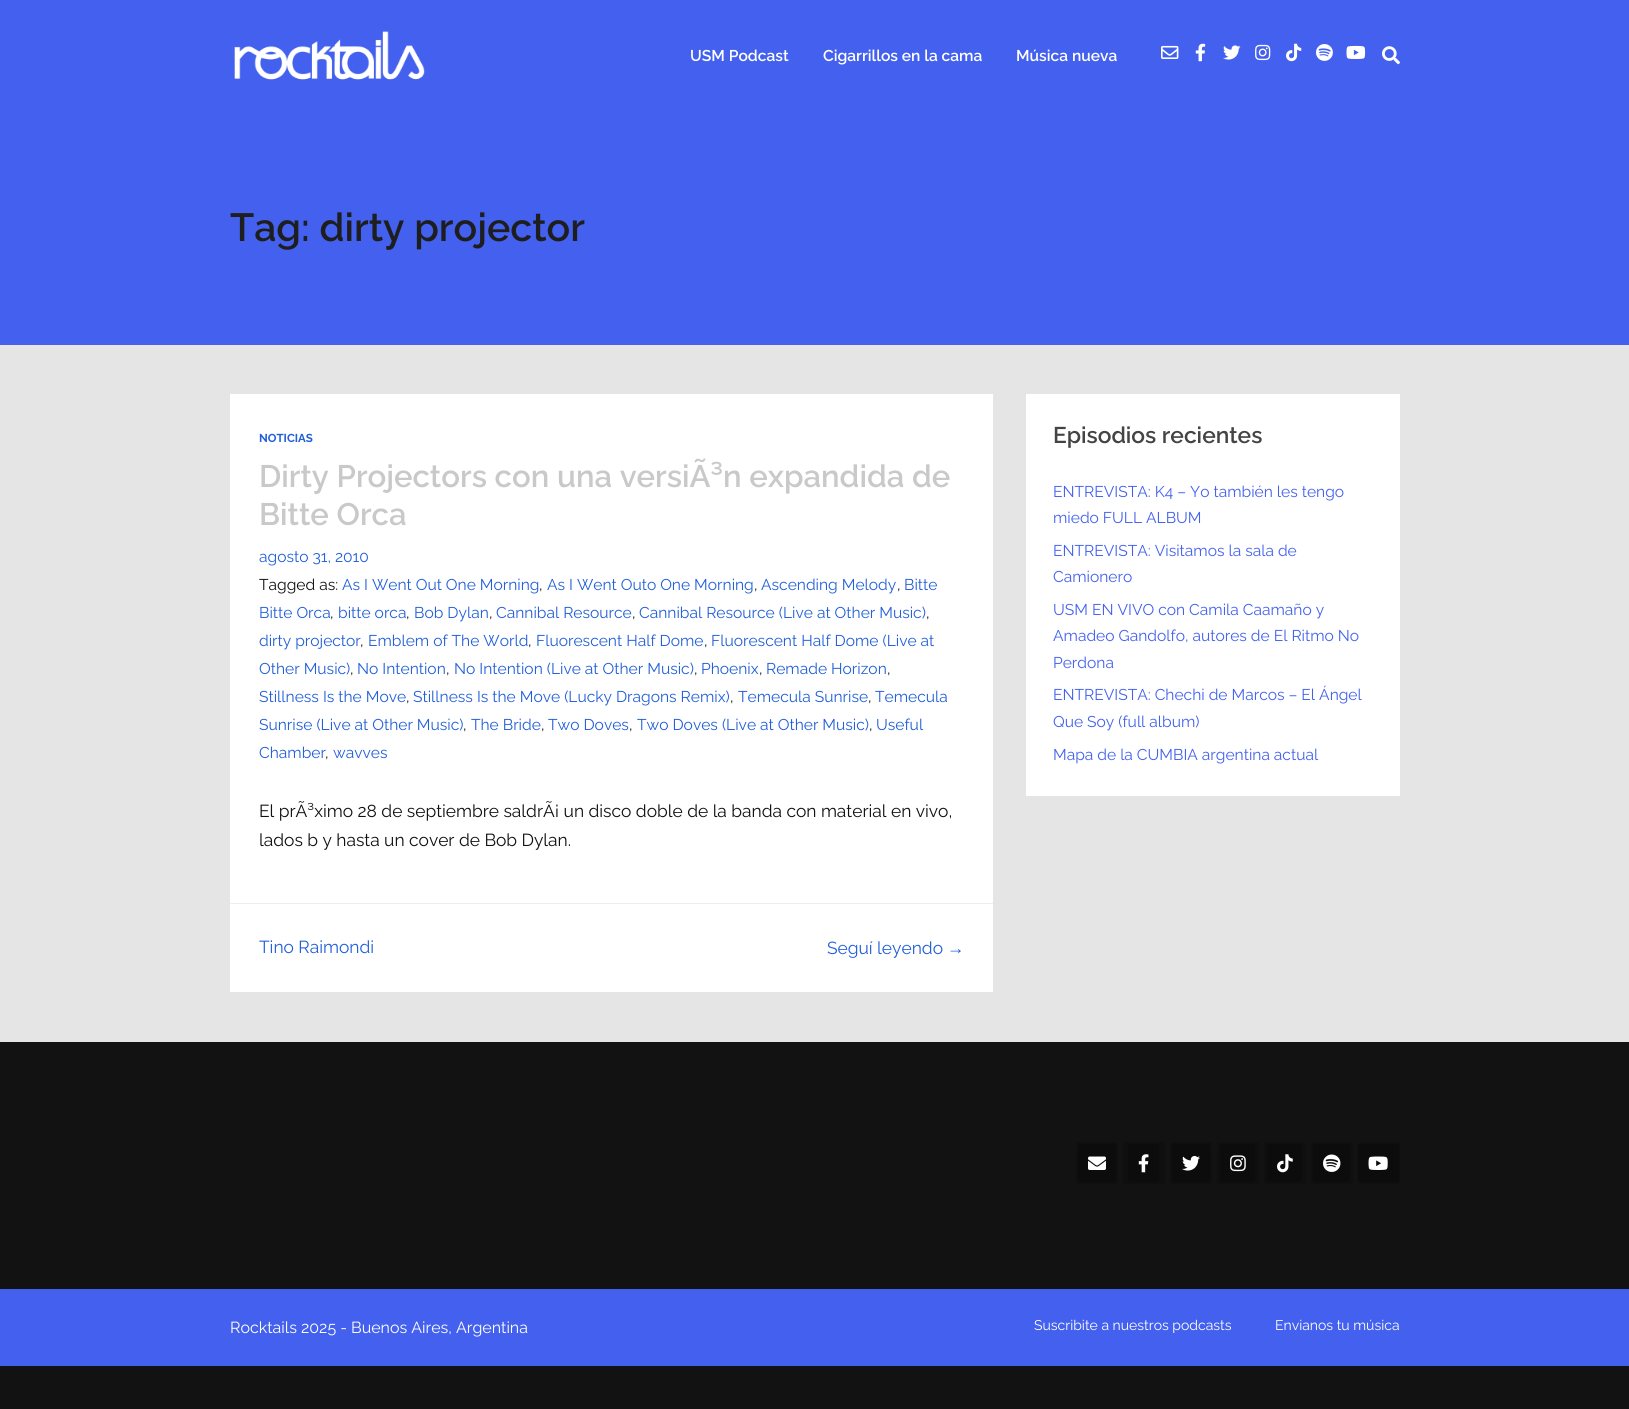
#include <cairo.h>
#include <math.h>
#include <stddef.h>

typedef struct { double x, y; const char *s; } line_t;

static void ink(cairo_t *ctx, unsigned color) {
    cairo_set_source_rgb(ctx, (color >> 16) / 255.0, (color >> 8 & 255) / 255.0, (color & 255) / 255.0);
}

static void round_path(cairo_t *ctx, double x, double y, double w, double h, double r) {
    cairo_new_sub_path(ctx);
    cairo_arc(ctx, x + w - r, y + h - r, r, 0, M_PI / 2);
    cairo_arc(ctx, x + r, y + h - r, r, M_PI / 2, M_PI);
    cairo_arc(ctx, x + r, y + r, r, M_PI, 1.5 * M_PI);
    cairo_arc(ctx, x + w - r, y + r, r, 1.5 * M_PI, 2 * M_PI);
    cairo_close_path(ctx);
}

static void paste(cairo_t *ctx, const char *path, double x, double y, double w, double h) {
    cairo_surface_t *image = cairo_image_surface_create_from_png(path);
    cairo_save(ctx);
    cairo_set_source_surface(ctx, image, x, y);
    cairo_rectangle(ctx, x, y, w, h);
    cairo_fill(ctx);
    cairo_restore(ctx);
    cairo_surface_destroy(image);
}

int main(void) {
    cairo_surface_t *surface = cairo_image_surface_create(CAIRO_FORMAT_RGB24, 1629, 1409);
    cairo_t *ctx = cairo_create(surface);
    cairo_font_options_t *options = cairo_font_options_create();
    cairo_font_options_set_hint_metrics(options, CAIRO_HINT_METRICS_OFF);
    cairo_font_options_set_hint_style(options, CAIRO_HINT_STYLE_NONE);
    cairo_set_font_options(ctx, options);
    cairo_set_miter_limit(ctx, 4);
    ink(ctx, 0x121212);
    cairo_paint(ctx);
    ink(ctx, 0x4361EE);
    cairo_rectangle(ctx, 0, 0, 1629, 345);
    cairo_fill(ctx);
    paste(ctx, "media/1.png", 234, 31, 191, 49);
    cairo_select_font_face(ctx, "Raleway SemiBold", CAIRO_FONT_SLANT_NORMAL, CAIRO_FONT_WEIGHT_NORMAL);
    cairo_set_font_size(ctx, 15.6);
    ink(ctx, 0xFFFFFF);
    {
        static const line_t items[] = {
            {690, 61, "USM Podcast"},
            {823, 61, "Cigarrillos en la cama"},
            {1016, 61, "Música nueva"},
        };
        for (size_t i = 0; i < sizeof items / sizeof *items; i++) {
            cairo_move_to(ctx, items[i].x, items[i].y);
            cairo_show_text(ctx, items[i].s);
        }
    }
    paste(ctx, "media/2.png", 1161, 45, 18, 14);
    paste(ctx, "media/3.png", 1195, 43, 11, 19);
    paste(ctx, "media/4.png", 1223, 45, 18, 15);
    paste(ctx, "media/5.png", 1255, 44, 16, 17);
    paste(ctx, "media/6.png", 1286, 43, 16, 19);
    paste(ctx, "media/7.png", 1316, 44, 17, 17);
    paste(ctx, "media/8.png", 1346, 45, 20, 14);
    paste(ctx, "media/9.png", 1382, 46, 18, 19);
    cairo_set_font_size(ctx, 39.25);
    ink(ctx, 0x1E1E1E);
    cairo_move_to(ctx, 230, 241);
    cairo_show_text(ctx, "Tag: dirty projector");
    ink(ctx, 0xE5E5E5);
    cairo_rectangle(ctx, 0, 345, 1629, 697);
    cairo_fill(ctx);
    ink(ctx, 0xFFFFFF);
    cairo_rectangle(ctx, 230, 394, 763, 598);
    cairo_fill(ctx);
    cairo_select_font_face(ctx, "Raleway", CAIRO_FONT_SLANT_NORMAL, CAIRO_FONT_WEIGHT_BOLD);
    cairo_set_font_size(ctx, 11.5);
    ink(ctx, 0x225FD8);
    cairo_move_to(ctx, 259, 442);
    cairo_show_text(ctx, "NOTICIAS");
    cairo_select_font_face(ctx, "Raleway SemiBold", CAIRO_FONT_SLANT_NORMAL, CAIRO_FONT_WEIGHT_NORMAL);
    cairo_set_font_size(ctx, 31.1);
    ink(ctx, 0xC9C9C9);
    cairo_move_to(ctx, 259, 487);
    cairo_show_text(ctx, "Dirty Projectors con una versiÃ³n expandida de");
    cairo_move_to(ctx, 259, 525);
    cairo_show_text(ctx, "Bitte Orca");
    cairo_select_font_face(ctx, "Raleway", CAIRO_FONT_SLANT_NORMAL, CAIRO_FONT_WEIGHT_NORMAL);
    cairo_set_font_size(ctx, 15.6);
    ink(ctx, 0x225FD8);
    cairo_move_to(ctx, 259, 562);
    cairo_show_text(ctx, "agosto 31, 2010");
    ink(ctx, 0x111111);
    cairo_move_to(ctx, 259, 590);
    cairo_show_text(ctx, "Tagged as:");
    ink(ctx, 0x225FD8);
    cairo_move_to(ctx, 342, 590);
    cairo_show_text(ctx, "As I Went Out One Morning");
    ink(ctx, 0x111111);
    cairo_move_to(ctx, 539, 590);
    cairo_show_text(ctx, ",");
    ink(ctx, 0x225FD8);
    cairo_move_to(ctx, 547, 590);
    cairo_show_text(ctx, "As I Went Outo One Morning");
    ink(ctx, 0x111111);
    cairo_move_to(ctx, 754, 590);
    cairo_show_text(ctx, ",");
    ink(ctx, 0x225FD8);
    cairo_move_to(ctx, 761, 590);
    cairo_show_text(ctx, "Ascending Melody");
    ink(ctx, 0x111111);
    cairo_move_to(ctx, 897, 590);
    cairo_show_text(ctx, ",");
    ink(ctx, 0x225FD8);
    cairo_move_to(ctx, 904, 590);
    cairo_show_text(ctx, "Bitte");
    cairo_move_to(ctx, 259, 618);
    cairo_show_text(ctx, "Bitte Orca");
    ink(ctx, 0x111111);
    cairo_move_to(ctx, 330, 618);
    cairo_show_text(ctx, ",");
    ink(ctx, 0x225FD8);
    cairo_move_to(ctx, 338, 618);
    cairo_show_text(ctx, "bitte orca");
    ink(ctx, 0x111111);
    cairo_move_to(ctx, 406, 618);
    cairo_show_text(ctx, ",");
    ink(ctx, 0x225FD8);
    cairo_move_to(ctx, 414, 618);
    cairo_show_text(ctx, "Bob Dylan");
    ink(ctx, 0x111111);
    cairo_move_to(ctx, 489, 618);
    cairo_show_text(ctx, ",");
    ink(ctx, 0x225FD8);
    cairo_move_to(ctx, 496, 618);
    cairo_show_text(ctx, "Cannibal Resource");
    ink(ctx, 0x111111);
    cairo_move_to(ctx, 632, 618);
    cairo_show_text(ctx, ",");
    ink(ctx, 0x225FD8);
    cairo_move_to(ctx, 639, 618);
    cairo_show_text(ctx, "Cannibal Resource (Live at Other Music)");
    ink(ctx, 0x111111);
    cairo_move_to(ctx, 926, 618);
    cairo_show_text(ctx, ",");
    ink(ctx, 0x225FD8);
    cairo_move_to(ctx, 259, 646);
    cairo_show_text(ctx, "dirty projector");
    ink(ctx, 0x111111);
    cairo_move_to(ctx, 360, 646);
    cairo_show_text(ctx, ",");
    ink(ctx, 0x225FD8);
    cairo_move_to(ctx, 368, 646);
    cairo_show_text(ctx, "Emblem of The World");
    ink(ctx, 0x111111);
    cairo_move_to(ctx, 528, 646);
    cairo_show_text(ctx, ",");
    ink(ctx, 0x225FD8);
    cairo_move_to(ctx, 536, 646);
    cairo_show_text(ctx, "Fluorescent Half Dome");
    ink(ctx, 0x111111);
    cairo_move_to(ctx, 704, 646);
    cairo_show_text(ctx, ",");
    ink(ctx, 0x225FD8);
    cairo_move_to(ctx, 711, 646);
    cairo_show_text(ctx, "Fluorescent Half Dome (Live at");
    cairo_move_to(ctx, 259, 674);
    cairo_show_text(ctx, "Other Music)");
    ink(ctx, 0x111111);
    cairo_move_to(ctx, 350, 674);
    cairo_show_text(ctx, ",");
    ink(ctx, 0x225FD8);
    cairo_move_to(ctx, 357, 674);
    cairo_show_text(ctx, "No Intention");
    ink(ctx, 0x111111);
    cairo_move_to(ctx, 446, 674);
    cairo_show_text(ctx, ",");
    ink(ctx, 0x225FD8);
    cairo_move_to(ctx, 454, 674);
    cairo_show_text(ctx, "No Intention (Live at Other Music)");
    ink(ctx, 0x111111);
    cairo_move_to(ctx, 694, 674);
    cairo_show_text(ctx, ",");
    ink(ctx, 0x225FD8);
    cairo_move_to(ctx, 701, 674);
    cairo_show_text(ctx, "Phoenix");
    ink(ctx, 0x111111);
    cairo_move_to(ctx, 759, 674);
    cairo_show_text(ctx, ",");
    ink(ctx, 0x225FD8);
    cairo_move_to(ctx, 766, 674);
    cairo_show_text(ctx, "Remade Horizon");
    ink(ctx, 0x111111);
    cairo_move_to(ctx, 887, 674);
    cairo_show_text(ctx, ",");
    ink(ctx, 0x225FD8);
    cairo_move_to(ctx, 259, 702);
    cairo_show_text(ctx, "Stillness Is the Move");
    ink(ctx, 0x111111);
    cairo_move_to(ctx, 406, 702);
    cairo_show_text(ctx, ",");
    ink(ctx, 0x225FD8);
    cairo_move_to(ctx, 413, 702);
    cairo_show_text(ctx, "Stillness Is the Move (Lucky Dragons Remix)");
    ink(ctx, 0x111111);
    cairo_move_to(ctx, 730, 702);
    cairo_show_text(ctx, ",");
    ink(ctx, 0x225FD8);
    cairo_move_to(ctx, 738, 702);
    cairo_show_text(ctx, "Temecula Sunrise");
    ink(ctx, 0x111111);
    cairo_move_to(ctx, 868, 702);
    cairo_show_text(ctx, ",");
    ink(ctx, 0x225FD8);
    cairo_move_to(ctx, 875, 702);
    cairo_show_text(ctx, "Temecula");
    cairo_move_to(ctx, 259, 730);
    cairo_show_text(ctx, "Sunrise (Live at Other Music)");
    ink(ctx, 0x111111);
    cairo_move_to(ctx, 463, 730);
    cairo_show_text(ctx, ",");
    ink(ctx, 0x225FD8);
    cairo_move_to(ctx, 471, 730);
    cairo_show_text(ctx, "The Bride");
    ink(ctx, 0x111111);
    cairo_move_to(ctx, 541, 730);
    cairo_show_text(ctx, ",");
    ink(ctx, 0x225FD8);
    cairo_move_to(ctx, 548, 730);
    cairo_show_text(ctx, "Two Doves");
    ink(ctx, 0x111111);
    cairo_move_to(ctx, 629, 730);
    cairo_show_text(ctx, ",");
    ink(ctx, 0x225FD8);
    cairo_move_to(ctx, 637, 730);
    cairo_show_text(ctx, "Two Doves (Live at Other Music)");
    ink(ctx, 0x111111);
    cairo_move_to(ctx, 869, 730);
    cairo_show_text(ctx, ",");
    ink(ctx, 0x225FD8);
    cairo_move_to(ctx, 876, 730);
    cairo_show_text(ctx, "Useful");
    cairo_move_to(ctx, 259, 758);
    cairo_show_text(ctx, "Chamber");
    ink(ctx, 0x111111);
    cairo_move_to(ctx, 325, 758);
    cairo_show_text(ctx, ",");
    ink(ctx, 0x225FD8);
    cairo_move_to(ctx, 333, 758);
    cairo_show_text(ctx, "wavves");
    cairo_set_font_size(ctx, 17.4);
    ink(ctx, 0x111111);
    cairo_move_to(ctx, 259, 817);
    cairo_show_text(ctx, "El prÃ³ximo 28 de septiembre saldrÃ¡ un disco doble de la banda con material en vivo,");
    cairo_move_to(ctx, 259, 846);
    cairo_show_text(ctx, "lados b y hasta un cover de Bob Dylan.");
    ink(ctx, 0xEEEEEE);
    cairo_rectangle(ctx, 230, 903, 763, 1);
    cairo_fill(ctx);
    ink(ctx, 0x225FD8);
    cairo_move_to(ctx, 259, 953);
    cairo_show_text(ctx, "Tino Raimondi");
    cairo_move_to(ctx, 827, 954);
    cairo_show_text(ctx, "Seguí leyendo");
    cairo_select_font_face(ctx, "Liberation Serif", CAIRO_FONT_SLANT_NORMAL, CAIRO_FONT_WEIGHT_NORMAL);
    cairo_move_to(ctx, 947, 954);
    cairo_show_text(ctx, "→");
    ink(ctx, 0xFFFFFF);
    cairo_rectangle(ctx, 1026, 394, 374, 402);
    cairo_fill(ctx);
    cairo_select_font_face(ctx, "Raleway SemiBold", CAIRO_FONT_SLANT_NORMAL, CAIRO_FONT_WEIGHT_NORMAL);
    cairo_set_font_size(ctx, 22.75);
    ink(ctx, 0x444444);
    cairo_move_to(ctx, 1053, 443);
    cairo_show_text(ctx, "Episodios recientes");
    cairo_select_font_face(ctx, "Raleway", CAIRO_FONT_SLANT_NORMAL, CAIRO_FONT_WEIGHT_NORMAL);
    cairo_set_font_size(ctx, 15.6);
    ink(ctx, 0x4361EE);
    {
        static const line_t items[] = {
            {1053, 497, "ENTREVISTA: K4 – Yo también les tengo"},
            {1053, 523, "miedo FULL ALBUM"},
            {1053, 556, "ENTREVISTA: Visitamos la sala de"},
            {1053, 582, "Camionero"},
            {1053, 615, "USM EN VIVO con Camila Caamaño y"},
            {1053, 641, "Amadeo Gandolfo, autores de El Ritmo No"},
            {1053, 668, "Perdona"},
            {1053, 700, "ENTREVISTA: Chechi de Marcos – El Ángel"},
            {1053, 727, "Que Soy (full album)"},
            {1053, 760, "Mapa de la CUMBIA argentina actual"},
        };
        for (size_t i = 0; i < sizeof items / sizeof *items; i++) {
            cairo_move_to(ctx, items[i].x, items[i].y);
            cairo_show_text(ctx, items[i].s);
        }
    }
    ink(ctx, 0x0F0F0F);
    round_path(ctx, 1076, 1142, 42, 42, 3);
    cairo_fill(ctx);
    ink(ctx, 0x0C0C0C);
    round_path(ctx, 1078, 1144, 38, 38, 3);
    cairo_fill(ctx);
    paste(ctx, "media/10.png", 1088, 1156, 18, 14);
    ink(ctx, 0x0F0F0F);
    round_path(ctx, 1123, 1142, 42, 42, 3);
    cairo_fill(ctx);
    ink(ctx, 0x0C0C0C);
    round_path(ctx, 1128, 1144, 31, 38, 3);
    cairo_fill(ctx);
    paste(ctx, "media/11.png", 1138, 1154, 11, 19);
    ink(ctx, 0x0F0F0F);
    round_path(ctx, 1170, 1142, 42, 42, 3);
    cairo_fill(ctx);
    ink(ctx, 0x0C0C0C);
    round_path(ctx, 1172, 1144, 38, 38, 3);
    cairo_fill(ctx);
    paste(ctx, "media/12.png", 1182, 1155, 18, 16);
    ink(ctx, 0x0F0F0F);
    round_path(ctx, 1217, 1142, 42, 42, 3);
    cairo_fill(ctx);
    ink(ctx, 0x0C0C0C);
    round_path(ctx, 1220, 1144, 35, 38, 3);
    cairo_fill(ctx);
    paste(ctx, "media/13.png", 1230, 1155, 16, 17);
    ink(ctx, 0x0F0F0F);
    round_path(ctx, 1264, 1142, 42, 42, 3);
    cairo_fill(ctx);
    ink(ctx, 0x0C0C0C);
    round_path(ctx, 1267, 1144, 35, 38, 3);
    cairo_fill(ctx);
    paste(ctx, "media/14.png", 1277, 1154, 16, 19);
    ink(ctx, 0x0F0F0F);
    round_path(ctx, 1311, 1142, 42, 42, 3);
    cairo_fill(ctx);
    ink(ctx, 0x0C0C0C);
    round_path(ctx, 1313, 1144, 37, 38, 3);
    cairo_fill(ctx);
    paste(ctx, "media/15.png", 1323, 1154, 18, 18);
    ink(ctx, 0x0F0F0F);
    round_path(ctx, 1358, 1142, 42, 42, 3);
    cairo_fill(ctx);
    ink(ctx, 0x0C0C0C);
    round_path(ctx, 1358, 1144, 41, 38, 3);
    cairo_fill(ctx);
    paste(ctx, "media/16.png", 1368, 1156, 20, 14);
    ink(ctx, 0x4361EE);
    cairo_rectangle(ctx, 0, 1289, 1629, 77);
    cairo_fill(ctx);
    cairo_set_font_size(ctx, 16);
    ink(ctx, 0xFFFFFF);
    cairo_move_to(ctx, 230, 1333);
    cairo_show_text(ctx, "Rocktails 2025 - Buenos Aires, Argentina");
    cairo_set_font_size(ctx, 14);
    cairo_move_to(ctx, 1034, 1330);
    cairo_show_text(ctx, "Suscribite a nuestros podcasts");
    cairo_move_to(ctx, 1275, 1330);
    cairo_show_text(ctx, "Envianos tu música");
    cairo_surface_write_to_png(surface, "image.png");
    cairo_font_options_destroy(options);
    cairo_destroy(ctx);
    cairo_surface_destroy(surface);
    return 0;
}
